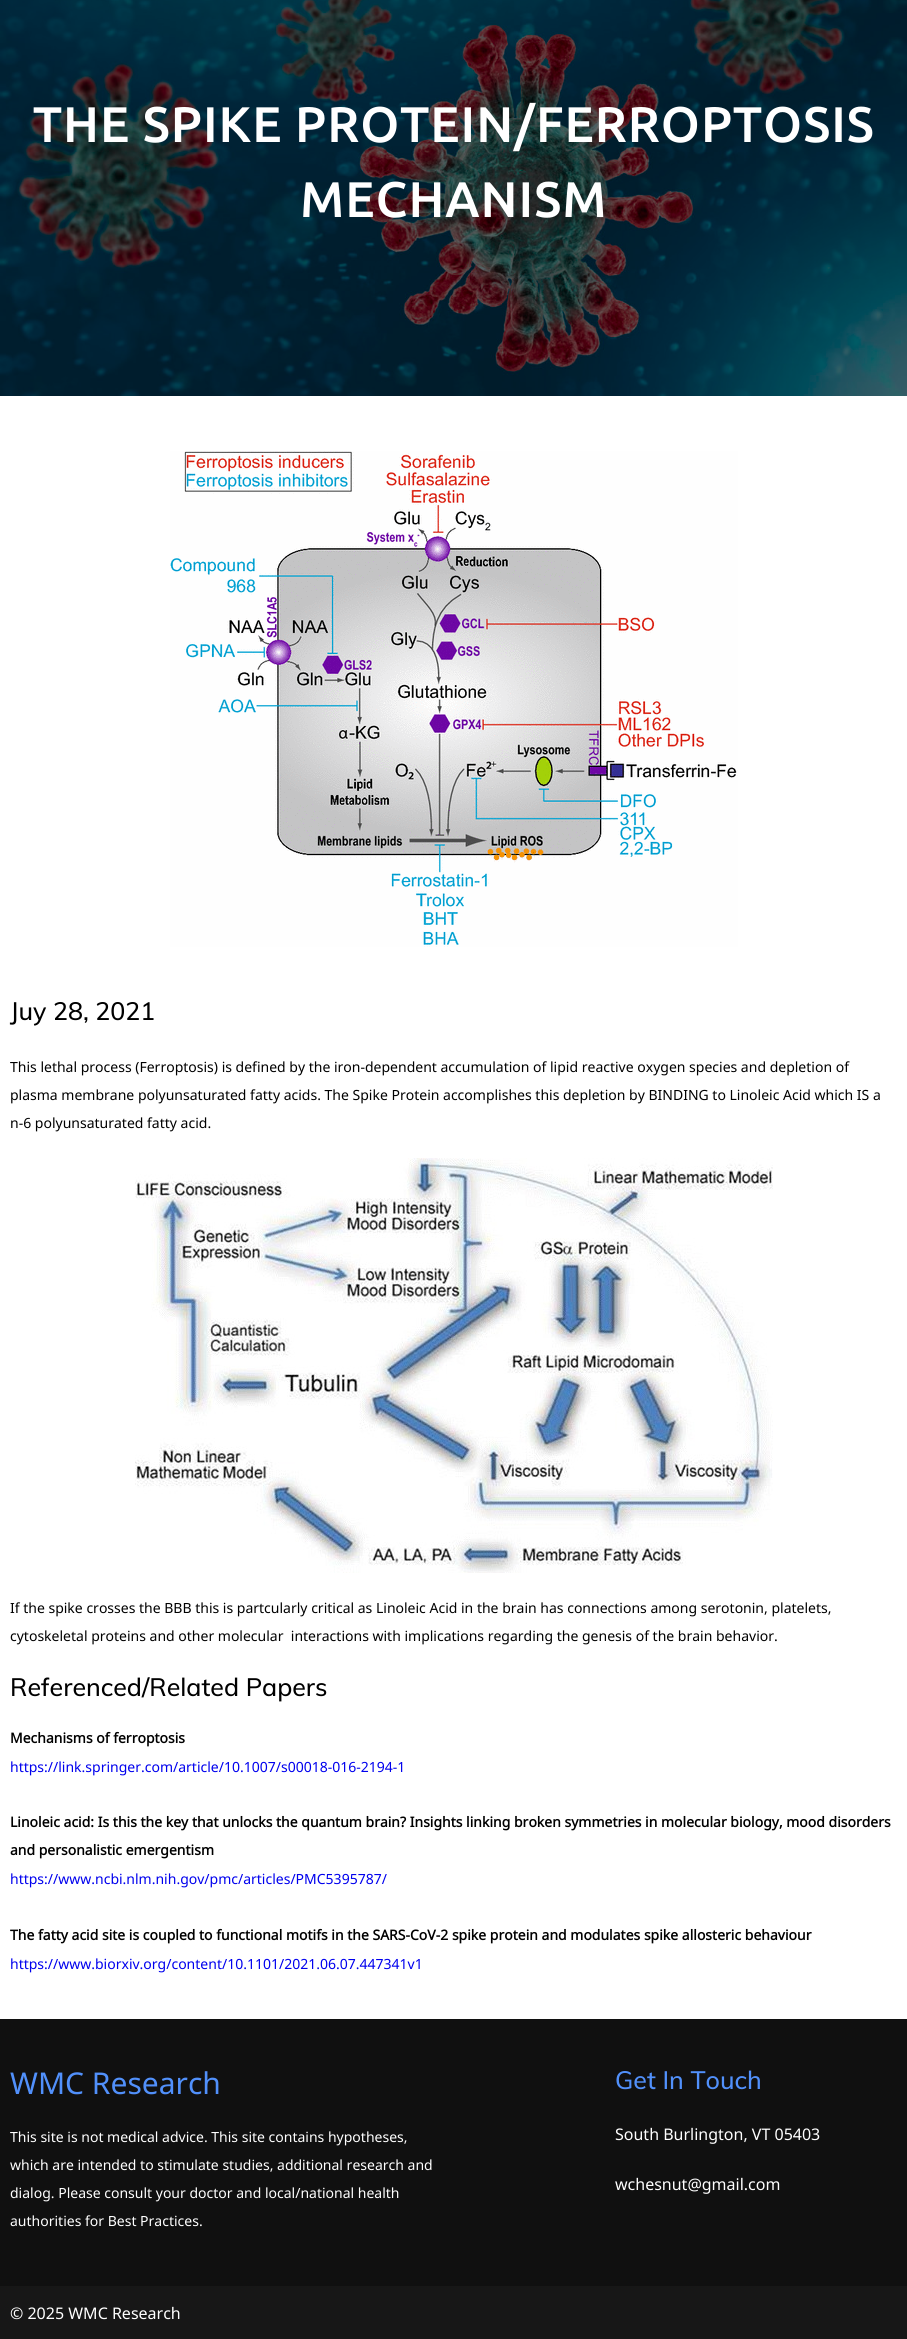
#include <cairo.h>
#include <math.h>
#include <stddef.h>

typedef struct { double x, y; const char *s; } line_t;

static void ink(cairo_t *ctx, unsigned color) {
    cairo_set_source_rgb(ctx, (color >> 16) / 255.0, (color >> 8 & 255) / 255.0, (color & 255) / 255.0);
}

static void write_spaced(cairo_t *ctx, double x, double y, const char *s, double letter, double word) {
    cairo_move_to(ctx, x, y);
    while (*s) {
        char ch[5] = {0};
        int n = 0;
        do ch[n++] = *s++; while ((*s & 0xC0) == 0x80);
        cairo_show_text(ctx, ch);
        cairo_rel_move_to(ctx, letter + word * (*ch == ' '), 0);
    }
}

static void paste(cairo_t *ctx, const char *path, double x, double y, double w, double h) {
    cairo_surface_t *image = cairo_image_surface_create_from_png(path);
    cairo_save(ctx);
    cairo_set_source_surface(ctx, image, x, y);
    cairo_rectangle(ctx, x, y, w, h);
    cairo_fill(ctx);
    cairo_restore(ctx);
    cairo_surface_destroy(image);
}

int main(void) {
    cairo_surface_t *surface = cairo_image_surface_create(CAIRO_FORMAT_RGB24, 907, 2339);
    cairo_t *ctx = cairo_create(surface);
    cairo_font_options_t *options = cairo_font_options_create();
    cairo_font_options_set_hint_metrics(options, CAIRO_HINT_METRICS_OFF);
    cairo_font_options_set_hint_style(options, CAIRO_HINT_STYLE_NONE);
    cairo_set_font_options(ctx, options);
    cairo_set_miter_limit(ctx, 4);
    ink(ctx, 0xFFFFFF);
    cairo_paint(ctx);
    paste(ctx, "media/1.png", 0, 0, 907, 396);
    cairo_select_font_face(ctx, "Ubuntu Medium", CAIRO_FONT_SLANT_NORMAL, CAIRO_FONT_WEIGHT_NORMAL);
    cairo_set_font_size(ctx, 50);
    ink(ctx, 0xFFFFFF);
    write_spaced(ctx, 33, 142, "THE SPIKE PROTEIN/FERROPTOSIS", 1, 0);
    write_spaced(ctx, 300, 217, "MECHANISM", 1, 0);
    paste(ctx, "media/2.png", 170, 451, 568, 496);
    cairo_select_font_face(ctx, "Muli Medium", CAIRO_FONT_SLANT_NORMAL, CAIRO_FONT_WEIGHT_NORMAL);
    cairo_set_font_size(ctx, 25);
    ink(ctx, 0x000000);
    cairo_move_to(ctx, 10, 1020);
    cairo_show_text(ctx, "Juy 28, 2021");
    cairo_select_font_face(ctx, "Noto Sans", CAIRO_FONT_SLANT_NORMAL, CAIRO_FONT_WEIGHT_NORMAL);
    cairo_set_font_size(ctx, 14);
    {
        static const line_t items[] = {
            {10, 1072, "This lethal process (Ferroptosis) is defined by the iron-dependent accumulation of lipid reactive oxygen species and depletion of"},
            {10, 1100, "plasma membrane polyunsaturated fatty acids. The Spike Protein accomplishes this depletion by BINDING to Linoleic Acid which IS a"},
            {10, 1128, "n-6 polyunsaturated fatty acid."},
        };
        for (size_t i = 0; i < sizeof items / sizeof *items; i++) {
            cairo_move_to(ctx, items[i].x, items[i].y);
            cairo_show_text(ctx, items[i].s);
        }
    }
    paste(ctx, "media/3.png", 135, 1158, 638, 415);
    cairo_move_to(ctx, 10, 1613);
    cairo_show_text(ctx, "If the spike crosses the BBB this is partcularly critical as Linoleic Acid in the brain has connections among serotonin, platelets,");
    cairo_move_to(ctx, 10, 1641);
    cairo_show_text(ctx, "cytoskeletal proteins and other molecular  interactions with implications regarding the genesis of the brain behavior.");
    cairo_select_font_face(ctx, "Muli Medium", CAIRO_FONT_SLANT_NORMAL, CAIRO_FONT_WEIGHT_NORMAL);
    cairo_set_font_size(ctx, 25);
    cairo_move_to(ctx, 10, 1696);
    cairo_show_text(ctx, "Referenced/Related Papers");
    cairo_select_font_face(ctx, "Noto Sans", CAIRO_FONT_SLANT_NORMAL, CAIRO_FONT_WEIGHT_BOLD);
    cairo_set_font_size(ctx, 14);
    cairo_move_to(ctx, 10, 1743);
    cairo_show_text(ctx, "Mechanisms of ferroptosis");
    cairo_select_font_face(ctx, "Noto Sans", CAIRO_FONT_SLANT_NORMAL, CAIRO_FONT_WEIGHT_NORMAL);
    ink(ctx, 0x0000EE);
    cairo_move_to(ctx, 10, 1772);
    cairo_show_text(ctx, "https://link.springer.com/article/10.1007/s00018-016-2194-1");
    cairo_select_font_face(ctx, "Noto Sans", CAIRO_FONT_SLANT_NORMAL, CAIRO_FONT_WEIGHT_BOLD);
    ink(ctx, 0x000000);
    cairo_move_to(ctx, 10, 1827);
    cairo_show_text(ctx, "Linoleic acid: Is this the key that unlocks the quantum brain? Insights linking broken symmetries in molecular biology, mood disorders");
    cairo_move_to(ctx, 10, 1855);
    cairo_show_text(ctx, "and personalistic emergentism");
    cairo_select_font_face(ctx, "Noto Sans", CAIRO_FONT_SLANT_NORMAL, CAIRO_FONT_WEIGHT_NORMAL);
    ink(ctx, 0x0000EE);
    cairo_move_to(ctx, 10, 1884);
    cairo_show_text(ctx, "https://www.ncbi.nlm.nih.gov/pmc/articles/PMC5395787/");
    cairo_select_font_face(ctx, "Noto Sans", CAIRO_FONT_SLANT_NORMAL, CAIRO_FONT_WEIGHT_BOLD);
    ink(ctx, 0x000000);
    cairo_move_to(ctx, 10, 1940);
    cairo_show_text(ctx, "The fatty acid site is coupled to functional motifs in the SARS-CoV-2 spike protein and modulates spike allosteric behaviour");
    cairo_select_font_face(ctx, "Noto Sans", CAIRO_FONT_SLANT_NORMAL, CAIRO_FONT_WEIGHT_NORMAL);
    ink(ctx, 0x0000EE);
    cairo_move_to(ctx, 10, 1969);
    cairo_show_text(ctx, "https://www.biorxiv.org/content/10.1101/2021.06.07.447341v1");
    ink(ctx, 0x101010);
    cairo_rectangle(ctx, 0, 2019, 907, 267);
    cairo_fill(ctx);
    cairo_set_font_size(ctx, 30);
    ink(ctx, 0x5190FB);
    cairo_move_to(ctx, 10, 2094);
    cairo_show_text(ctx, "WMC Research");
    cairo_set_font_size(ctx, 14);
    ink(ctx, 0xFFFFFF);
    {
        static const line_t items[] = {
            {10, 2142, "This site is not medical advice. This site contains hypotheses,"},
            {10, 2170, "which are intended to stimulate studies, additional research and"},
            {10, 2198, "dialog. Please consult your doctor and local/national health"},
            {10, 2226, "authorities for Best Practices."},
        };
        for (size_t i = 0; i < sizeof items / sizeof *items; i++) {
            cairo_move_to(ctx, items[i].x, items[i].y);
            cairo_show_text(ctx, items[i].s);
        }
    }
    cairo_select_font_face(ctx, "Muli Medium", CAIRO_FONT_SLANT_NORMAL, CAIRO_FONT_WEIGHT_NORMAL);
    cairo_set_font_size(ctx, 25);
    ink(ctx, 0x5190FB);
    cairo_move_to(ctx, 615, 2089);
    cairo_show_text(ctx, "Get In Touch");
    cairo_select_font_face(ctx, "Noto Sans", CAIRO_FONT_SLANT_NORMAL, CAIRO_FONT_WEIGHT_NORMAL);
    cairo_set_font_size(ctx, 16);
    ink(ctx, 0xFFFFFF);
    cairo_move_to(ctx, 615, 2140);
    cairo_show_text(ctx, "South Burlington, VT 05403");
    cairo_move_to(ctx, 615, 2190);
    cairo_show_text(ctx, "wchesnut@gmail.com");
    ink(ctx, 0x171717);
    cairo_rectangle(ctx, 0, 2286, 907, 53);
    cairo_fill(ctx);
    ink(ctx, 0xFFFFFF);
    cairo_move_to(ctx, 10, 2319);
    cairo_show_text(ctx, "© 2025 WMC Research");
    cairo_surface_write_to_png(surface, "image.png");
    cairo_font_options_destroy(options);
    cairo_destroy(ctx);
    cairo_surface_destroy(surface);
    return 0;
}
